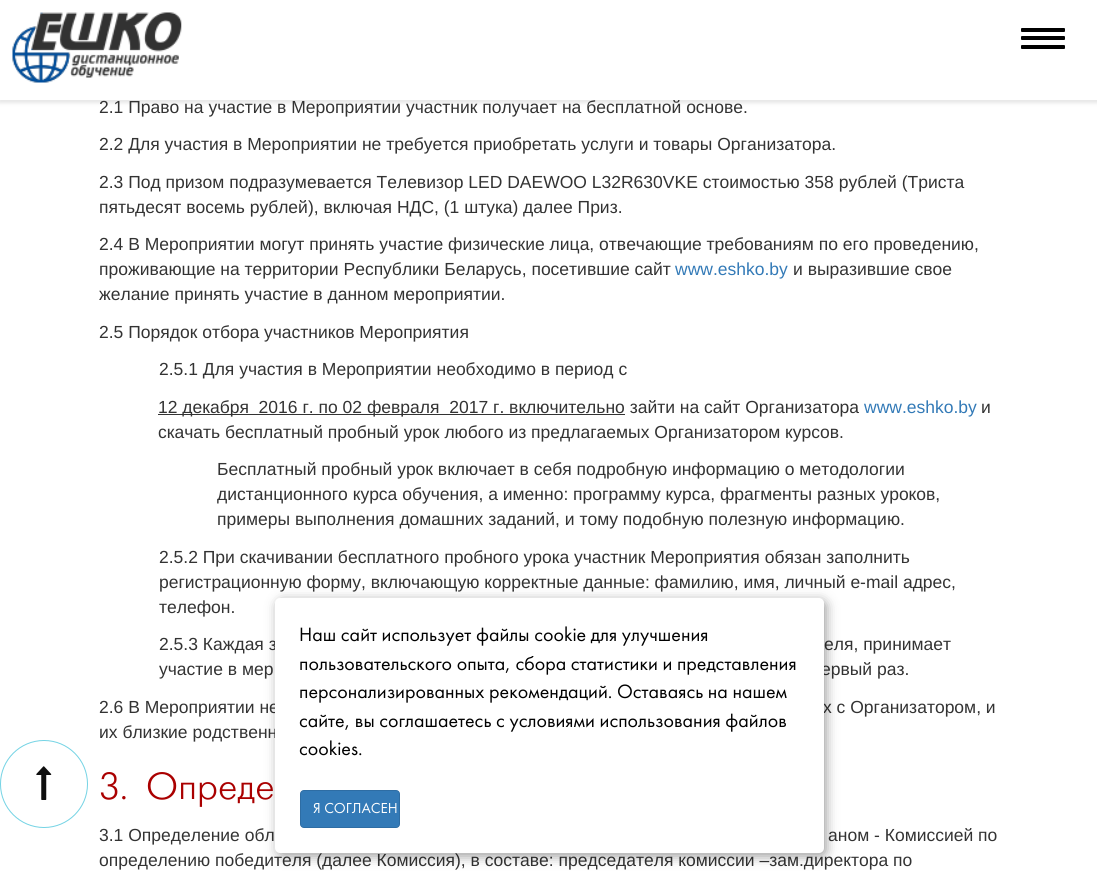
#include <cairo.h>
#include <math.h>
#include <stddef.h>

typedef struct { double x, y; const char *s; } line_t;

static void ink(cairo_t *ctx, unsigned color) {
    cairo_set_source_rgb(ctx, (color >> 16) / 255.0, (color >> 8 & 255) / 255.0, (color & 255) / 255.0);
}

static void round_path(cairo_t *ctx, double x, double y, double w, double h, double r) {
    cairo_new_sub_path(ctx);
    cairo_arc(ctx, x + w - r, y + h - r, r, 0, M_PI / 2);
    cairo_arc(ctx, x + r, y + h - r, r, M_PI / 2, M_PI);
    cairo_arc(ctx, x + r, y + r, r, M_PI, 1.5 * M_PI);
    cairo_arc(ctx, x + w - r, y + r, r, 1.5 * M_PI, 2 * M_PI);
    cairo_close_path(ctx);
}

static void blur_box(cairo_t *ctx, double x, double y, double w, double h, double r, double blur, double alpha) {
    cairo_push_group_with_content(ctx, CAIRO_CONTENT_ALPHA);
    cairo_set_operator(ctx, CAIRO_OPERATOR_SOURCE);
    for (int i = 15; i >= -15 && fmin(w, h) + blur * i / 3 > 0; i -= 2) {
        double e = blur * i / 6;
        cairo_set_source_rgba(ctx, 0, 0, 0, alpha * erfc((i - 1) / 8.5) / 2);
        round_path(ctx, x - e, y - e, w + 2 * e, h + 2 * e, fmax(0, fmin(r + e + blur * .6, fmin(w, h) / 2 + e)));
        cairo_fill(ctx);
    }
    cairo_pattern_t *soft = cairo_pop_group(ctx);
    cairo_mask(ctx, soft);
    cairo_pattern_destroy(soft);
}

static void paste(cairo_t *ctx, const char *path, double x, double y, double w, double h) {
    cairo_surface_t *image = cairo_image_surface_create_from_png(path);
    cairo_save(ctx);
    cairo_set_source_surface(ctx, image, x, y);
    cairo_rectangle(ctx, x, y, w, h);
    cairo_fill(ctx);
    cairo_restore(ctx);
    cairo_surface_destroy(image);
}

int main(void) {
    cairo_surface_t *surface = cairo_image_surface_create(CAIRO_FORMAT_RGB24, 1097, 871);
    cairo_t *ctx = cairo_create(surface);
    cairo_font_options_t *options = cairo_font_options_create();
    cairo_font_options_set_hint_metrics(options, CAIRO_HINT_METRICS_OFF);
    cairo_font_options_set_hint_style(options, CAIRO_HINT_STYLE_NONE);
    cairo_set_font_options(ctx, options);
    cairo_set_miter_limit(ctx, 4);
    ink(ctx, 0xFFFFFF);
    cairo_paint(ctx);
    ink(ctx, 0x000000);
    blur_box(ctx, -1, 0, 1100, 103, 0, 2, 0.1);
    ink(ctx, 0xFFFFFF);
    cairo_rectangle(ctx, 0, 0, 1097, 100);
    cairo_fill(ctx);
    paste(ctx, "media/1.png", 12, 12, 170, 71);
    ink(ctx, 0x000000);
    round_path(ctx, 1021, 28, 44, 4, 1);
    cairo_fill(ctx);
    round_path(ctx, 1021, 36, 44, 4, 1);
    cairo_fill(ctx);
    round_path(ctx, 1021, 45, 44, 4, 1);
    cairo_fill(ctx);
    cairo_select_font_face(ctx, "Liberation Sans", CAIRO_FONT_SLANT_NORMAL, CAIRO_FONT_WEIGHT_NORMAL);
    cairo_set_font_size(ctx, 17.5);
    ink(ctx, 0x333333);
    {
        static const line_t items[] = {
            {99, 113, "2.1 Право на участие в Мероприятии участник получает на бесплатной основе."},
            {99, 150, "2.2 Для участия в Мероприятии не требуется приобретать услуги и товары Организатора."},
            {99, 188, "2.3 Под призом подразумевается Телевизор LED DAEWOO L32R630VKE стоимостью 358 рублей (Триста"},
            {99, 213, "пятьдесят восемь рублей), включая НДС, (1 штука) далее Приз."},
            {99, 250, "2.4 В Мероприятии могут принять участие физические лица, отвечающие требованиям по его проведению,"},
            {99, 275, "проживающие на территории Республики Беларусь, посетившие сайт"},
        };
        for (size_t i = 0; i < sizeof items / sizeof *items; i++) {
            cairo_move_to(ctx, items[i].x, items[i].y);
            cairo_show_text(ctx, items[i].s);
        }
    }
    ink(ctx, 0x337AB7);
    cairo_move_to(ctx, 675, 275);
    cairo_show_text(ctx, "www.еshko.by");
    ink(ctx, 0x333333);
    {
        static const line_t items[] = {
            {793, 275, "и выразившие свое"},
            {99, 300, "желание принять участие в данном мероприятии."},
            {99, 338, "2.5 Порядок отбора участников Мероприятия"},
            {159, 375, "2.5.1 Для участия в Мероприятии необходимо в период с"},
        };
        for (size_t i = 0; i < sizeof items / sizeof *items; i++) {
            cairo_move_to(ctx, items[i].x, items[i].y);
            cairo_show_text(ctx, items[i].s);
        }
    }
    cairo_rectangle(ctx, 158, 414, 467, 1);
    cairo_fill(ctx);
    cairo_move_to(ctx, 158, 413);
    cairo_show_text(ctx, "12 декабря  2016 г. по 02 февраля  2017 г. включительно зайти на сайт Организатора");
    ink(ctx, 0x337AB7);
    cairo_move_to(ctx, 864, 413);
    cairo_show_text(ctx, "www.eshko.by");
    ink(ctx, 0x333333);
    {
        static const line_t items[] = {
            {981, 413, "и"},
            {158, 438, "скачать бесплатный пробный урок любого из предлагаемых Организатором курсов."},
            {217, 475, "Бесплатный пробный урок включает в себя подробную информацию о методологии"},
            {217, 500, "дистанционного курса обучения, а именно: программу курса, фрагменты разных уроков,"},
            {217, 525, "примеры выполнения домашних заданий, и тому подобную полезную информацию."},
            {159, 563, "2.5.2 При скачивании бесплатного пробного урока участник Мероприятия обязан заполнить"},
            {159, 588, "регистрационную форму, включающую корректные данные: фамилию, имя, личный e-mail адрес,"},
            {159, 613, "телефон."},
            {159, 650, "2.5.3 Каждая з"},
            {824, 650, "еля, принимает"},
            {159, 675, "участие в мер"},
            {821, 675, "ервый раз."},
            {99, 713, "2.6 В Мероприятии не"},
            {823, 713, "х с Организатором, и"},
            {99, 738, "их близкие родственн"},
        };
        for (size_t i = 0; i < sizeof items / sizeof *items; i++) {
            cairo_move_to(ctx, items[i].x, items[i].y);
            cairo_show_text(ctx, items[i].s);
        }
    }
    cairo_select_font_face(ctx, "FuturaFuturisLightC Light", CAIRO_FONT_SLANT_NORMAL, CAIRO_FONT_WEIGHT_NORMAL);
    cairo_set_font_size(ctx, 37.5);
    ink(ctx, 0xAA0000);
    cairo_move_to(ctx, 99, 799);
    cairo_show_text(ctx, "3.  Опреде");
    cairo_select_font_face(ctx, "Liberation Sans", CAIRO_FONT_SLANT_NORMAL, CAIRO_FONT_WEIGHT_NORMAL);
    cairo_set_font_size(ctx, 17.5);
    ink(ctx, 0x333333);
    {
        static const line_t items[] = {
            {99, 841, "3.1 Определение обл"},
            {828, 841, "аном - Комиссией по"},
            {99, 866, "определению победителя (далее Комиссия), в составе: председателя комиссии –зам.директора по"},
        };
        for (size_t i = 0; i < sizeof items / sizeof *items; i++) {
            cairo_move_to(ctx, items[i].x, items[i].y);
            cairo_show_text(ctx, items[i].s);
        }
    }
    cairo_new_path(ctx);
    cairo_arc(ctx, 44, 784, 43.5, 0, 2 * M_PI);
    ink(ctx, 0x74D3E4);
    cairo_set_line_width(ctx, 1);
    cairo_stroke(ctx);
    paste(ctx, "media/2.png", 36, 766, 16, 34);
    ink(ctx, 0x000000);
    blur_box(ctx, 278, 601, 548, 255, 5, 6, 0.4);
    ink(ctx, 0xFFFFFF);
    round_path(ctx, 275, 598, 549, 255, 5);
    cairo_fill(ctx);
    cairo_select_font_face(ctx, "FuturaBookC", CAIRO_FONT_SLANT_NORMAL, CAIRO_FONT_WEIGHT_NORMAL);
    cairo_set_font_size(ctx, 20);
    ink(ctx, 0x000000);
    {
        static const line_t items[] = {
            {299, 641, "Наш сайт использует файлы cookie для улучшения"},
            {299, 670, "пользовательского опыта, сбора статистики и представления"},
            {299, 698, "персонализированных рекомендаций. Оставаясь на нашем"},
            {299, 727, "сайте, вы соглашаетесь с условиями использования файлов"},
            {299, 755, "cookies."},
        };
        for (size_t i = 0; i < sizeof items / sizeof *items; i++) {
            cairo_move_to(ctx, items[i].x, items[i].y);
            cairo_show_text(ctx, items[i].s);
        }
    }
    ink(ctx, 0x337AB7);
    round_path(ctx, 300.5, 790.5, 99, 37, 3.5);
    cairo_fill_preserve(ctx);
    ink(ctx, 0x2E6DA4);
    cairo_stroke(ctx);
    cairo_set_font_size(ctx, 15);
    ink(ctx, 0xFFFFFF);
    cairo_move_to(ctx, 313, 813);
    cairo_show_text(ctx, "Я СОГЛАСЕН");
    cairo_surface_write_to_png(surface, "image.png");
    cairo_font_options_destroy(options);
    cairo_destroy(ctx);
    cairo_surface_destroy(surface);
    return 0;
}
